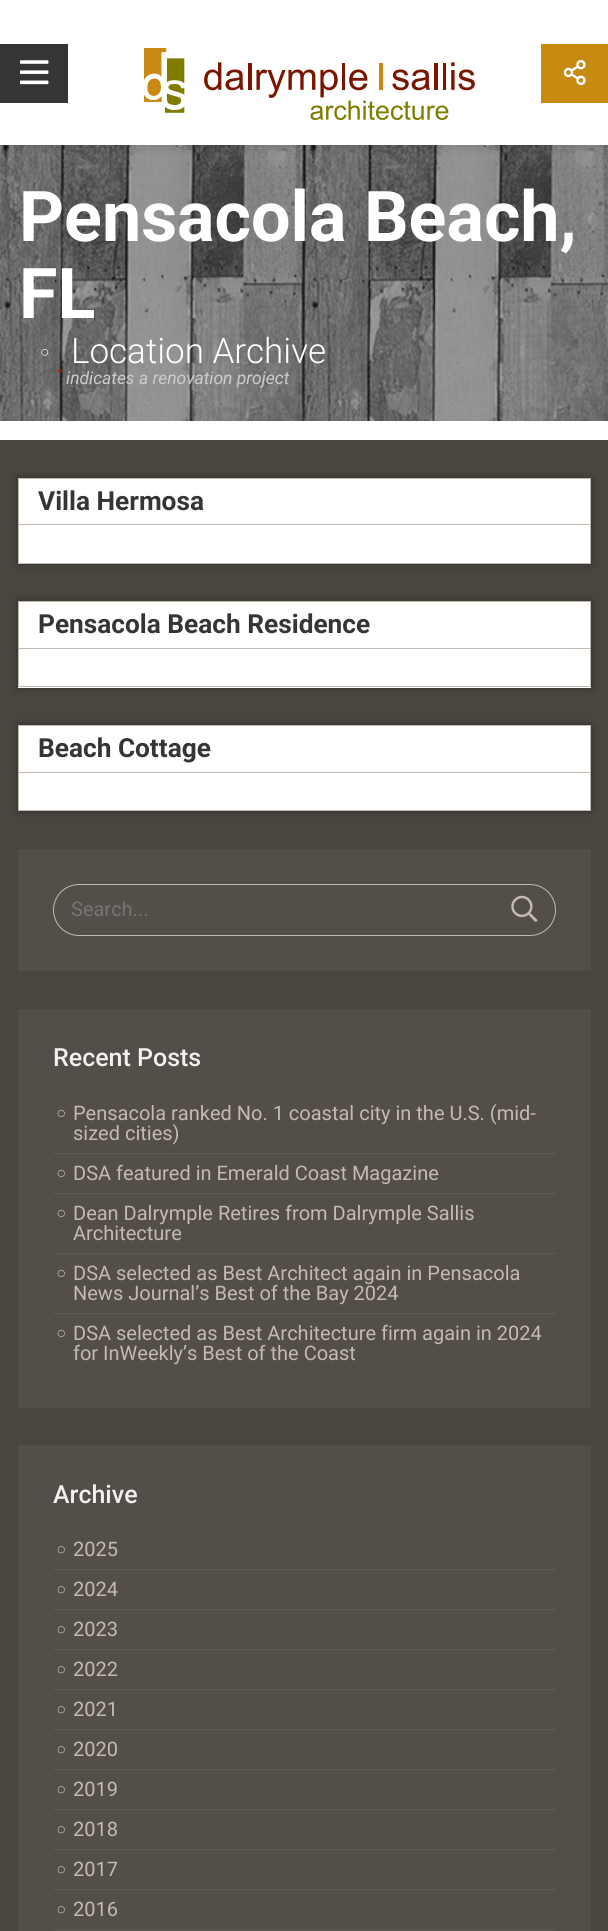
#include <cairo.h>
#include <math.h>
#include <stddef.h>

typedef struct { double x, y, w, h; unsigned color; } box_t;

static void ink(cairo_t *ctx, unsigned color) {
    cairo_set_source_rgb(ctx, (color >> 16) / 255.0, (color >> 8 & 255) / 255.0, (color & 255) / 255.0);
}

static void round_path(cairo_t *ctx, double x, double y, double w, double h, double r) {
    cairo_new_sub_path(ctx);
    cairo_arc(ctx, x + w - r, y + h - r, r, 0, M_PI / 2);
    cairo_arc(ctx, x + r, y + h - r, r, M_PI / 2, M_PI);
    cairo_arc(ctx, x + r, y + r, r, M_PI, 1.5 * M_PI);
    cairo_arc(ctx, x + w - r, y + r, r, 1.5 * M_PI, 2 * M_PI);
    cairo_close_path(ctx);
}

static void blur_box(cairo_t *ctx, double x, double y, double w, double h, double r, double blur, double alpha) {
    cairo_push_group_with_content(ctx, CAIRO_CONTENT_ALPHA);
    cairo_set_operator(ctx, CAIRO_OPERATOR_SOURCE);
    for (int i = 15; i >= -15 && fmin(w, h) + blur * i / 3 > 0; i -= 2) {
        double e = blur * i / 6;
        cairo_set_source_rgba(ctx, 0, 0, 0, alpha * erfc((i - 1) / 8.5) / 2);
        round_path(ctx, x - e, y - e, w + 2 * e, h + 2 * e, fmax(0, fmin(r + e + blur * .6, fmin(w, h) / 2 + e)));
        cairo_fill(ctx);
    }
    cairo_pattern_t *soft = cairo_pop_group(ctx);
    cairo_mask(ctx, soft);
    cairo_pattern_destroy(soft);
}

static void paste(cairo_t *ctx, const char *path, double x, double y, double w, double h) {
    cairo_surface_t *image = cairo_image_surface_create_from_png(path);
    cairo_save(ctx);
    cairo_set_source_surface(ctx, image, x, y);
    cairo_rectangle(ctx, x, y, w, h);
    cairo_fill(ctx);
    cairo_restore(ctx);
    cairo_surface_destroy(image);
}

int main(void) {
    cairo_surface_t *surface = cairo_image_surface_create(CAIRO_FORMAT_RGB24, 608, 1931);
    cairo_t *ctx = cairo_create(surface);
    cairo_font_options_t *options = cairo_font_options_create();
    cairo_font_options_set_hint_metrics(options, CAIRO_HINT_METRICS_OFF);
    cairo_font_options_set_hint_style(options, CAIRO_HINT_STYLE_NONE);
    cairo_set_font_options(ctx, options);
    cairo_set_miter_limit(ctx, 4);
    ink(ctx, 0xFFFFFF);
    cairo_paint(ctx);
    paste(ctx, "media/4.png", 0, 145, 608, 276);
    cairo_save(ctx);
    cairo_rectangle(ctx, 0, 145, 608, 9);
    cairo_clip(ctx);
    ink(ctx, 0x000000);
    blur_box(ctx, 0, 4, 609, 145, 0, 5.5, 0.1);
    cairo_restore(ctx);
    ink(ctx, 0x353535);
    cairo_rectangle(ctx, 0, 44, 68, 59);
    cairo_fill(ctx);
    paste(ctx, "media/1.png", 20, 60, 29, 25);
    paste(ctx, "media/2.png", 144, 48, 331, 72);
    ink(ctx, 0xC88B11);
    cairo_rectangle(ctx, 541, 44, 67, 59);
    cairo_fill(ctx);
    paste(ctx, "media/3.png", 563, 60, 23, 25);
    cairo_select_font_face(ctx, "Roboto", CAIRO_FONT_SLANT_NORMAL, CAIRO_FONT_WEIGHT_BOLD);
    cairo_set_font_size(ctx, 70);
    ink(ctx, 0xFFFFFF);
    cairo_move_to(ctx, 19, 241);
    cairo_show_text(ctx, "Pensacola Beach,");
    cairo_move_to(ctx, 19, 318);
    cairo_show_text(ctx, "FL");
    paste(ctx, "media/5.png", 41, 349, 8, 7);
    cairo_select_font_face(ctx, "Roboto Light", CAIRO_FONT_SLANT_NORMAL, CAIRO_FONT_WEIGHT_NORMAL);
    cairo_set_font_size(ctx, 35);
    cairo_move_to(ctx, 71, 363);
    cairo_show_text(ctx, "Location Archive");
    cairo_select_font_face(ctx, "Roboto", CAIRO_FONT_SLANT_ITALIC, CAIRO_FONT_WEIGHT_NORMAL);
    cairo_set_font_size(ctx, 13);
    ink(ctx, 0xC72400);
    cairo_move_to(ctx, 56, 377);
    cairo_show_text(ctx, "*");
    cairo_set_font_size(ctx, 17.5);
    ink(ctx, 0xCCCCCC);
    cairo_move_to(ctx, 66, 384);
    cairo_show_text(ctx, "indicates a renovation project");
    ink(ctx, 0x4A453F);
    cairo_rectangle(ctx, 0, 440, 608, 1491);
    cairo_fill(ctx);
    ink(ctx, 0x000000);
    blur_box(ctx, 18, 478, 573, 86, 0, 4, 0.35);
    ink(ctx, 0xFFFFFF);
    cairo_rectangle(ctx, 19, 479, 571, 84);
    cairo_fill(ctx);
    ink(ctx, 0xC3BAB2);
    cairo_rectangle(ctx, 18, 563, 573, 1);
    cairo_fill(ctx);
    cairo_rectangle(ctx, 18.5, 478.5, 572, 46);
    cairo_set_line_width(ctx, 1);
    cairo_stroke(ctx);
    cairo_select_font_face(ctx, "Roboto", CAIRO_FONT_SLANT_NORMAL, CAIRO_FONT_WEIGHT_BOLD);
    cairo_set_font_size(ctx, 26.25);
    ink(ctx, 0x353535);
    cairo_move_to(ctx, 38, 510);
    cairo_show_text(ctx, "Villa Hermosa");
    ink(ctx, 0xC3BAB2);
    cairo_rectangle(ctx, 590, 525, 1, 38);
    cairo_fill(ctx);
    cairo_rectangle(ctx, 18, 525, 1, 38);
    cairo_fill(ctx);
    ink(ctx, 0x000000);
    blur_box(ctx, 18, 601, 573, 87, 0, 4, 0.35);
    ink(ctx, 0xFFFFFF);
    cairo_rectangle(ctx, 18, 602, 573, 86);
    cairo_fill(ctx);
    ink(ctx, 0xC3BAB2);
    cairo_rectangle(ctx, 18, 686, 573, 1);
    cairo_fill(ctx);
    cairo_rectangle(ctx, 18.5, 601.5, 572, 47);
    cairo_stroke(ctx);
    ink(ctx, 0x353535);
    cairo_move_to(ctx, 38, 633);
    cairo_show_text(ctx, "Pensacola Beach Residence");
    ink(ctx, 0xC3BAB2);
    cairo_rectangle(ctx, 590, 649, 1, 37);
    cairo_fill(ctx);
    cairo_rectangle(ctx, 18, 649, 1, 37);
    cairo_fill(ctx);
    ink(ctx, 0x000000);
    blur_box(ctx, 18, 725, 573, 86, 0, 4, 0.35);
    ink(ctx, 0xFFFFFF);
    cairo_rectangle(ctx, 19, 726, 571, 84);
    cairo_fill(ctx);
    ink(ctx, 0xC3BAB2);
    cairo_rectangle(ctx, 18, 810, 573, 1);
    cairo_fill(ctx);
    cairo_rectangle(ctx, 18.5, 725.5, 572, 47);
    cairo_stroke(ctx);
    ink(ctx, 0x353535);
    cairo_move_to(ctx, 38, 757);
    cairo_show_text(ctx, "Beach Cottage");
    {
        static const box_t items[] = {
            {590, 773, 1, 37, 0xC3BAB2},
            {18, 773, 1, 37, 0xC3BAB2},
            {18, 849, 573, 122, 0x534E48},
        };
        for (size_t i = 0; i < sizeof items / sizeof *items; i++) {
            ink(ctx, items[i].color);
            cairo_rectangle(ctx, items[i].x, items[i].y, items[i].w, items[i].h);
            cairo_fill(ctx);
        }
    }
    round_path(ctx, 53.5, 884.5, 502, 51, 25.5);
    ink(ctx, 0xC3BAB1);
    cairo_stroke(ctx);
    cairo_select_font_face(ctx, "Roboto", CAIRO_FONT_SLANT_NORMAL, CAIRO_FONT_WEIGHT_NORMAL);
    cairo_set_font_size(ctx, 20);
    ink(ctx, 0x757575);
    cairo_move_to(ctx, 71, 916);
    cairo_show_text(ctx, "Search...");
    paste(ctx, "media/6.png", 511, 895, 27, 27);
    ink(ctx, 0x534E48);
    cairo_rectangle(ctx, 18, 1009, 573, 399);
    cairo_fill(ctx);
    cairo_select_font_face(ctx, "Roboto Medium", CAIRO_FONT_SLANT_NORMAL, CAIRO_FONT_WEIGHT_NORMAL);
    cairo_set_font_size(ctx, 25);
    ink(ctx, 0xF1F1F1);
    cairo_move_to(ctx, 53, 1066);
    cairo_show_text(ctx, "Recent Posts");
    ink(ctx, 0x635A52);
    cairo_rectangle(ctx, 53, 1153, 503, 1);
    cairo_fill(ctx);
    paste(ctx, "media/7.png", 57, 1109, 8, 8);
    cairo_select_font_face(ctx, "Roboto", CAIRO_FONT_SLANT_NORMAL, CAIRO_FONT_WEIGHT_NORMAL);
    cairo_set_font_size(ctx, 20);
    ink(ctx, 0xC3BAB1);
    cairo_move_to(ctx, 73, 1120);
    cairo_show_text(ctx, "Pensacola ranked No. 1 coastal city in the U.S. (mid-");
    cairo_move_to(ctx, 73, 1140);
    cairo_show_text(ctx, "sized cities)");
    ink(ctx, 0x635A52);
    cairo_rectangle(ctx, 53, 1193, 503, 1);
    cairo_fill(ctx);
    paste(ctx, "media/7.png", 57, 1169, 8, 8);
    ink(ctx, 0xC3BAB1);
    cairo_move_to(ctx, 73, 1180);
    cairo_show_text(ctx, "DSA featured in Emerald Coast Magazine");
    ink(ctx, 0x635A52);
    cairo_rectangle(ctx, 53, 1253, 503, 1);
    cairo_fill(ctx);
    paste(ctx, "media/7.png", 57, 1209, 8, 8);
    ink(ctx, 0xC3BAB1);
    cairo_move_to(ctx, 73, 1220);
    cairo_show_text(ctx, "Dean Dalrymple Retires from Dalrymple Sallis");
    cairo_move_to(ctx, 73, 1240);
    cairo_show_text(ctx, "Architecture");
    ink(ctx, 0x635A52);
    cairo_rectangle(ctx, 53, 1313, 503, 1);
    cairo_fill(ctx);
    paste(ctx, "media/7.png", 57, 1269, 8, 8);
    ink(ctx, 0xC3BAB1);
    cairo_move_to(ctx, 73, 1280);
    cairo_show_text(ctx, "DSA selected as Best Architect again in Pensacola");
    cairo_move_to(ctx, 73, 1300);
    cairo_show_text(ctx, "News Journal’s Best of the Bay 2024");
    paste(ctx, "media/7.png", 57, 1329, 8, 8);
    cairo_move_to(ctx, 73, 1340);
    cairo_show_text(ctx, "DSA selected as Best Architecture firm again in 2024");
    cairo_move_to(ctx, 73, 1360);
    cairo_show_text(ctx, "for InWeekly’s Best of the Coast");
    ink(ctx, 0x534E48);
    cairo_rectangle(ctx, 18, 1445, 573, 486);
    cairo_fill(ctx);
    cairo_select_font_face(ctx, "Roboto Medium", CAIRO_FONT_SLANT_NORMAL, CAIRO_FONT_WEIGHT_NORMAL);
    cairo_set_font_size(ctx, 25);
    ink(ctx, 0xF1F1F1);
    cairo_move_to(ctx, 53, 1503);
    cairo_show_text(ctx, "Archive");
    ink(ctx, 0x635A52);
    cairo_rectangle(ctx, 53, 1569, 503, 1);
    cairo_fill(ctx);
    paste(ctx, "media/8.png", 57, 1546, 8, 8);
    cairo_select_font_face(ctx, "Roboto", CAIRO_FONT_SLANT_NORMAL, CAIRO_FONT_WEIGHT_NORMAL);
    cairo_set_font_size(ctx, 20);
    ink(ctx, 0xC3BAB1);
    cairo_move_to(ctx, 73, 1556);
    cairo_show_text(ctx, "2025");
    ink(ctx, 0x635A52);
    cairo_rectangle(ctx, 53, 1609, 503, 1);
    cairo_fill(ctx);
    paste(ctx, "media/8.png", 57, 1586, 8, 8);
    ink(ctx, 0xC3BAB1);
    cairo_move_to(ctx, 73, 1596);
    cairo_show_text(ctx, "2024");
    ink(ctx, 0x635A52);
    cairo_rectangle(ctx, 53, 1649, 503, 1);
    cairo_fill(ctx);
    paste(ctx, "media/8.png", 57, 1626, 8, 8);
    ink(ctx, 0xC3BAB1);
    cairo_move_to(ctx, 73, 1636);
    cairo_show_text(ctx, "2023");
    ink(ctx, 0x635A52);
    cairo_rectangle(ctx, 53, 1689, 503, 1);
    cairo_fill(ctx);
    paste(ctx, "media/8.png", 57, 1666, 8, 8);
    ink(ctx, 0xC3BAB1);
    cairo_move_to(ctx, 73, 1676);
    cairo_show_text(ctx, "2022");
    ink(ctx, 0x635A52);
    cairo_rectangle(ctx, 53, 1729, 503, 1);
    cairo_fill(ctx);
    paste(ctx, "media/8.png", 57, 1706, 8, 8);
    ink(ctx, 0xC3BAB1);
    cairo_move_to(ctx, 73, 1716);
    cairo_show_text(ctx, "2021");
    ink(ctx, 0x635A52);
    cairo_rectangle(ctx, 53, 1769, 503, 1);
    cairo_fill(ctx);
    paste(ctx, "media/8.png", 57, 1746, 8, 8);
    ink(ctx, 0xC3BAB1);
    cairo_move_to(ctx, 73, 1756);
    cairo_show_text(ctx, "2020");
    ink(ctx, 0x635A52);
    cairo_rectangle(ctx, 53, 1809, 503, 1);
    cairo_fill(ctx);
    paste(ctx, "media/8.png", 57, 1786, 8, 8);
    ink(ctx, 0xC3BAB1);
    cairo_move_to(ctx, 73, 1796);
    cairo_show_text(ctx, "2019");
    ink(ctx, 0x635A52);
    cairo_rectangle(ctx, 53, 1849, 503, 1);
    cairo_fill(ctx);
    paste(ctx, "media/8.png", 57, 1826, 8, 8);
    ink(ctx, 0xC3BAB1);
    cairo_move_to(ctx, 73, 1836);
    cairo_show_text(ctx, "2018");
    ink(ctx, 0x635A52);
    cairo_rectangle(ctx, 53, 1889, 503, 1);
    cairo_fill(ctx);
    paste(ctx, "media/8.png", 57, 1866, 8, 8);
    ink(ctx, 0xC3BAB1);
    cairo_move_to(ctx, 73, 1876);
    cairo_show_text(ctx, "2017");
    ink(ctx, 0x635A52);
    cairo_rectangle(ctx, 53, 1929, 503, 1);
    cairo_fill(ctx);
    paste(ctx, "media/8.png", 57, 1906, 8, 8);
    ink(ctx, 0xC3BAB1);
    cairo_move_to(ctx, 73, 1916);
    cairo_show_text(ctx, "2016");
    cairo_surface_write_to_png(surface, "image.png");
    cairo_font_options_destroy(options);
    cairo_destroy(ctx);
    cairo_surface_destroy(surface);
    return 0;
}
